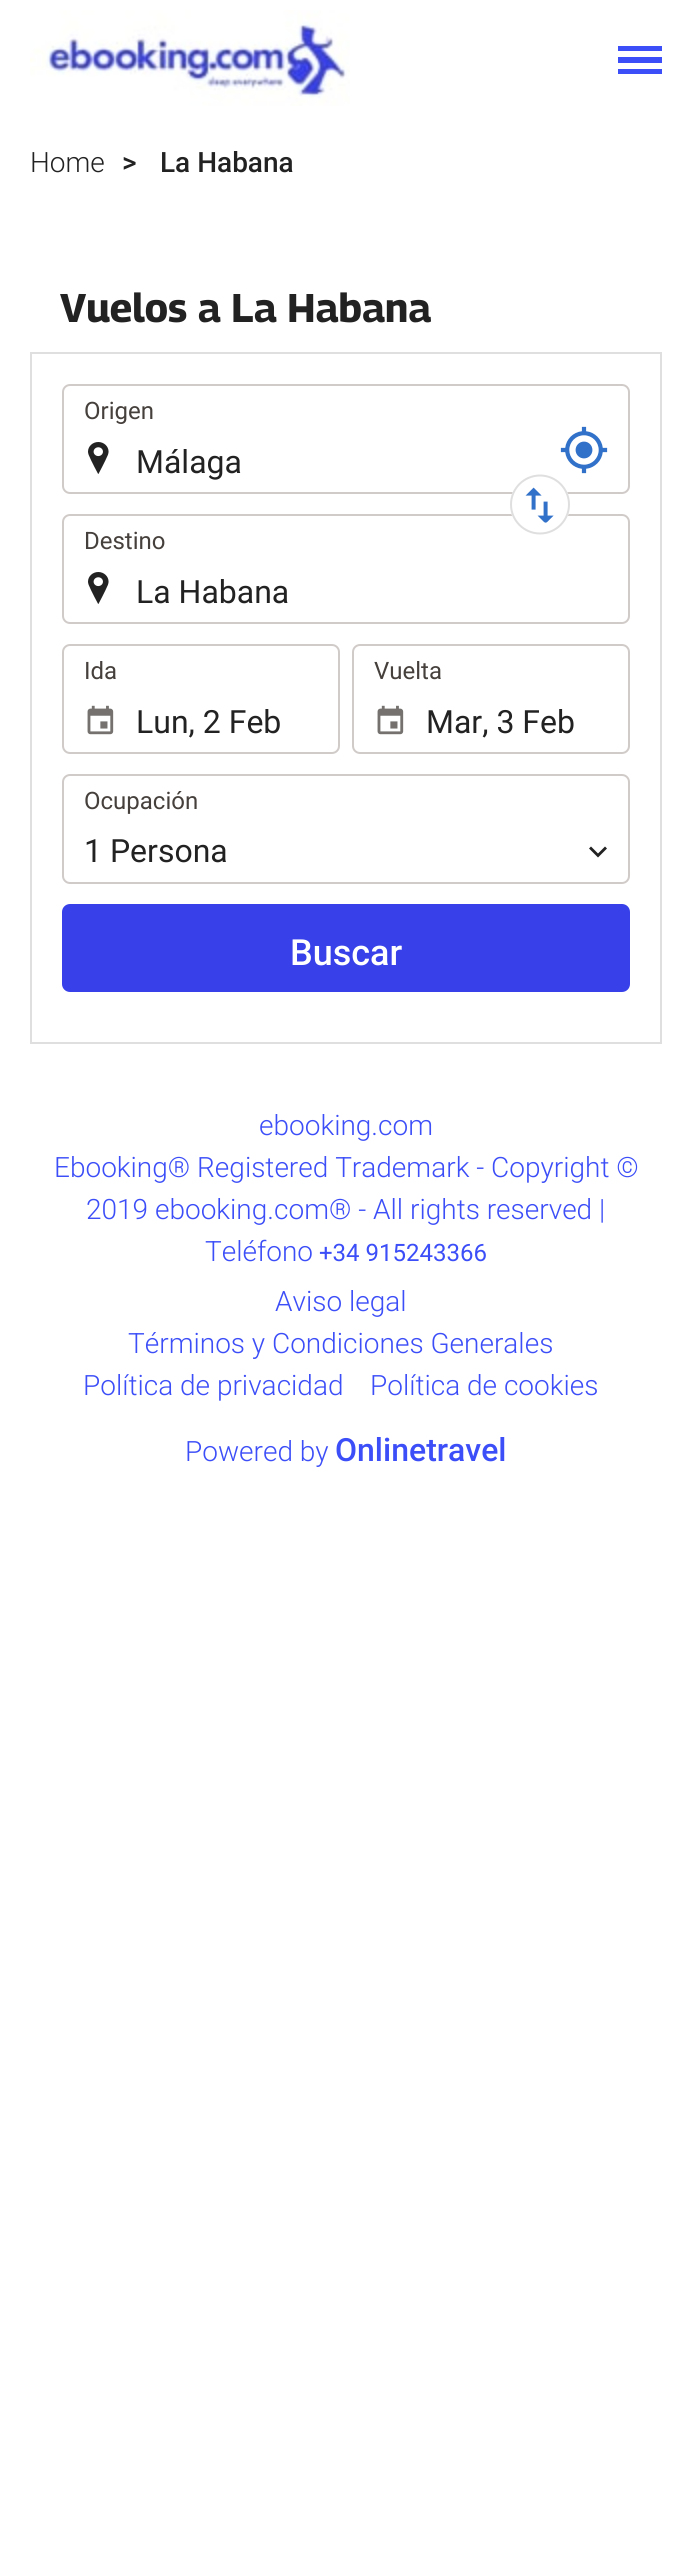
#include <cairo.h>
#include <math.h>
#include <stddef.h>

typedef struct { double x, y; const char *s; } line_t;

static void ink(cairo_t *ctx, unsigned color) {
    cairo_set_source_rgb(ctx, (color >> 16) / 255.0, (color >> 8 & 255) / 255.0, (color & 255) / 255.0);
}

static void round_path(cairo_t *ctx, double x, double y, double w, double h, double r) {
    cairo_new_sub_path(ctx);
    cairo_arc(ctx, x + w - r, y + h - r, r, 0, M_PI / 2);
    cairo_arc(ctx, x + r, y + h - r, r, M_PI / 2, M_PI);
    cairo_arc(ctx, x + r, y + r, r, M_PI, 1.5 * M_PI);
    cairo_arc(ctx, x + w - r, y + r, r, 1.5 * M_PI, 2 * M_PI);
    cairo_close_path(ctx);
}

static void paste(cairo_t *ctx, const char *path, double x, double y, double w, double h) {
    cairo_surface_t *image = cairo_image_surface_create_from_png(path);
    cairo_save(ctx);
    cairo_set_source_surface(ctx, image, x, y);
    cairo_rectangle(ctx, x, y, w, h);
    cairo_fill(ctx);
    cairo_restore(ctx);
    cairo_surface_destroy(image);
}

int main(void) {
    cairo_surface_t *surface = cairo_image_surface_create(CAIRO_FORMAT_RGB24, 691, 2571);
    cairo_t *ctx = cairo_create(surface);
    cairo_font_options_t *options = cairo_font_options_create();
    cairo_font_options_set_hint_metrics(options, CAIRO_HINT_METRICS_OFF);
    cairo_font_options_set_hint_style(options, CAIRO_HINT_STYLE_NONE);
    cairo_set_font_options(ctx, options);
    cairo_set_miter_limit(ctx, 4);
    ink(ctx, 0xFFFFFF);
    cairo_paint(ctx);
    paste(ctx, "media/1.png", 30, 10, 320, 96);
    ink(ctx, 0x3C4EF7);
    cairo_new_path(ctx);
    cairo_move_to(ctx, 618, 46);
    cairo_line_to(ctx, 662, 46);
    cairo_line_to(ctx, 662, 51);
    cairo_line_to(ctx, 618, 51);
    cairo_close_path(ctx);
    cairo_move_to(ctx, 618, 57);
    cairo_line_to(ctx, 662, 57);
    cairo_line_to(ctx, 662, 63);
    cairo_line_to(ctx, 618, 63);
    cairo_close_path(ctx);
    cairo_move_to(ctx, 618, 69);
    cairo_line_to(ctx, 662, 69);
    cairo_line_to(ctx, 662, 74);
    cairo_line_to(ctx, 618, 74);
    cairo_close_path(ctx);
    cairo_fill(ctx);
    cairo_select_font_face(ctx, "Roboto Light", CAIRO_FONT_SLANT_NORMAL, CAIRO_FONT_WEIGHT_NORMAL);
    cairo_set_font_size(ctx, 28);
    ink(ctx, 0x222222);
    cairo_move_to(ctx, 30, 172);
    cairo_show_text(ctx, "Home");
    cairo_select_font_face(ctx, "Roboto Medium", CAIRO_FONT_SLANT_NORMAL, CAIRO_FONT_WEIGHT_NORMAL);
    cairo_move_to(ctx, 122, 172);
    cairo_show_text(ctx, ">");
    cairo_move_to(ctx, 160, 172);
    cairo_show_text(ctx, "La Habana");
    cairo_select_font_face(ctx, "Georama", CAIRO_FONT_SLANT_NORMAL, CAIRO_FONT_WEIGHT_BOLD);
    cairo_set_font_size(ctx, 40);
    cairo_move_to(ctx, 60, 322);
    cairo_show_text(ctx, "Vuelos a La Habana");
    cairo_rectangle(ctx, 31, 353, 630, 690);
    ink(ctx, 0xDFDFDF);
    cairo_stroke(ctx);
    paste(ctx, "media/2.png", 88, 442, 21, 32);
    round_path(ctx, 63, 385, 566, 108, 7);
    ink(ctx, 0xD0CBC9);
    cairo_stroke(ctx);
    cairo_select_font_face(ctx, "Roboto", CAIRO_FONT_SLANT_NORMAL, CAIRO_FONT_WEIGHT_NORMAL);
    cairo_set_font_size(ctx, 24);
    ink(ctx, 0x46403C);
    cairo_move_to(ctx, 84, 419);
    cairo_show_text(ctx, "Origen");
    cairo_set_font_size(ctx, 32);
    ink(ctx, 0x222222);
    cairo_move_to(ctx, 136, 473);
    cairo_show_text(ctx, "Málaga");
    paste(ctx, "media/3.png", 560, 426, 48, 48);
    paste(ctx, "media/2.png", 88, 572, 21, 32);
    round_path(ctx, 63, 515, 566, 108, 7);
    ink(ctx, 0xD0CBC9);
    cairo_stroke(ctx);
    ink(ctx, 0xFFFFFF);
    cairo_new_path(ctx);
    cairo_move_to(ctx, 570, 505);
    cairo_curve_to(ctx, 570, 521, 557, 535, 540, 535);
    cairo_curve_to(ctx, 523, 535, 510, 521, 510, 505);
    cairo_curve_to(ctx, 510, 488, 523, 475, 540, 475);
    cairo_curve_to(ctx, 557, 475, 570, 488, 570, 505);
    cairo_close_path(ctx);
    cairo_fill(ctx);
    cairo_new_path(ctx);
    cairo_move_to(ctx, 569, 504.5);
    cairo_curve_to(ctx, 569, 520.5, 556, 533.5, 540, 533.5);
    cairo_curve_to(ctx, 524, 533.5, 511, 520.5, 511, 504.5);
    cairo_curve_to(ctx, 511, 488.5, 524, 475.5, 540, 475.5);
    cairo_curve_to(ctx, 556, 475.5, 569, 488.5, 569, 504.5);
    cairo_close_path(ctx);
    ink(ctx, 0xDFDFDF);
    cairo_stroke(ctx);
    paste(ctx, "media/4.png", 525, 487, 29, 36);
    cairo_set_font_size(ctx, 24);
    ink(ctx, 0x46403C);
    cairo_move_to(ctx, 84, 549);
    cairo_show_text(ctx, "Destino");
    cairo_set_font_size(ctx, 32);
    ink(ctx, 0x222222);
    cairo_move_to(ctx, 136, 603);
    cairo_show_text(ctx, "La Habana");
    paste(ctx, "media/5.png", 87, 705, 27, 30);
    round_path(ctx, 63, 645, 276, 108, 7);
    ink(ctx, 0xD0CBC9);
    cairo_stroke(ctx);
    cairo_set_font_size(ctx, 24);
    ink(ctx, 0x46403C);
    cairo_move_to(ctx, 84, 679);
    cairo_show_text(ctx, "Ida");
    cairo_set_font_size(ctx, 32);
    ink(ctx, 0x222222);
    cairo_move_to(ctx, 136, 733);
    cairo_show_text(ctx, "Lun, 2 Feb");
    paste(ctx, "media/5.png", 377, 705, 27, 30);
    round_path(ctx, 353, 645, 276, 108, 7);
    ink(ctx, 0xD0CBC9);
    cairo_stroke(ctx);
    cairo_set_font_size(ctx, 24);
    ink(ctx, 0x46403C);
    cairo_move_to(ctx, 374, 679);
    cairo_show_text(ctx, "Vuelta");
    cairo_set_font_size(ctx, 32);
    ink(ctx, 0x222222);
    cairo_move_to(ctx, 426, 733);
    cairo_show_text(ctx, "Mar, 3 Feb");
    round_path(ctx, 63, 775, 566, 108, 7);
    ink(ctx, 0xD0CBC9);
    cairo_stroke(ctx);
    cairo_set_font_size(ctx, 24);
    ink(ctx, 0x46403C);
    cairo_move_to(ctx, 84, 809);
    cairo_show_text(ctx, "Ocupación");
    cairo_set_font_size(ctx, 32);
    ink(ctx, 0x222222);
    cairo_move_to(ctx, 84, 862);
    cairo_show_text(ctx, "1 Persona");
    cairo_set_fill_rule(ctx, CAIRO_FILL_RULE_EVEN_ODD);
    cairo_new_path(ctx);
    cairo_move_to(ctx, 591, 846.5);
    cairo_line_to(ctx, 598, 853.5);
    cairo_line_to(ctx, 605, 846.5);
    cairo_line_to(ctx, 607, 848.5);
    cairo_line_to(ctx, 598, 857.5);
    cairo_line_to(ctx, 589, 848.5);
    cairo_close_path(ctx);
    cairo_fill(ctx);
    ink(ctx, 0x3740E9);
    round_path(ctx, 63, 905, 566, 86, 7);
    cairo_fill_preserve(ctx);
    cairo_stroke(ctx);
    cairo_select_font_face(ctx, "Roboto Medium", CAIRO_FONT_SLANT_NORMAL, CAIRO_FONT_WEIGHT_NORMAL);
    cairo_set_font_size(ctx, 36);
    ink(ctx, 0xFFFFFF);
    cairo_move_to(ctx, 290, 965);
    cairo_show_text(ctx, "Buscar");
    cairo_select_font_face(ctx, "Roboto Light", CAIRO_FONT_SLANT_NORMAL, CAIRO_FONT_WEIGHT_NORMAL);
    cairo_set_font_size(ctx, 28);
    ink(ctx, 0x3C4EF7);
    {
        static const line_t items[] = {
            {259, 1135, "ebooking.com"},
            {54, 1177, "Ebooking® Registered Trademark - Copyright ©"},
            {86, 1219, "2019 ebooking.com® - All rights reserved |"},
            {205, 1261, "Teléfono"},
        };
        for (size_t i = 0; i < sizeof items / sizeof *items; i++) {
            cairo_move_to(ctx, items[i].x, items[i].y);
            cairo_show_text(ctx, items[i].s);
        }
    }
    cairo_select_font_face(ctx, "Roboto", CAIRO_FONT_SLANT_NORMAL, CAIRO_FONT_WEIGHT_NORMAL);
    cairo_set_font_size(ctx, 24);
    cairo_move_to(ctx, 319, 1261);
    cairo_show_text(ctx, "+34 915243366");
    cairo_select_font_face(ctx, "Roboto Light", CAIRO_FONT_SLANT_NORMAL, CAIRO_FONT_WEIGHT_NORMAL);
    cairo_set_font_size(ctx, 28);
    {
        static const line_t items[] = {
            {275, 1311, "Aviso legal"},
            {128, 1353, "Términos y Condiciones Generales"},
            {83, 1395, "Política de privacidad"},
            {370, 1395, "Política de cookies"},
            {185, 1461, "Powered by"},
        };
        for (size_t i = 0; i < sizeof items / sizeof *items; i++) {
            cairo_move_to(ctx, items[i].x, items[i].y);
            cairo_show_text(ctx, items[i].s);
        }
    }
    cairo_select_font_face(ctx, "Roboto Medium", CAIRO_FONT_SLANT_NORMAL, CAIRO_FONT_WEIGHT_NORMAL);
    cairo_set_font_size(ctx, 32);
    cairo_move_to(ctx, 335, 1461);
    cairo_show_text(ctx, "Onlinetravel");
    cairo_surface_write_to_png(surface, "image.png");
    cairo_font_options_destroy(options);
    cairo_destroy(ctx);
    cairo_surface_destroy(surface);
    return 0;
}
